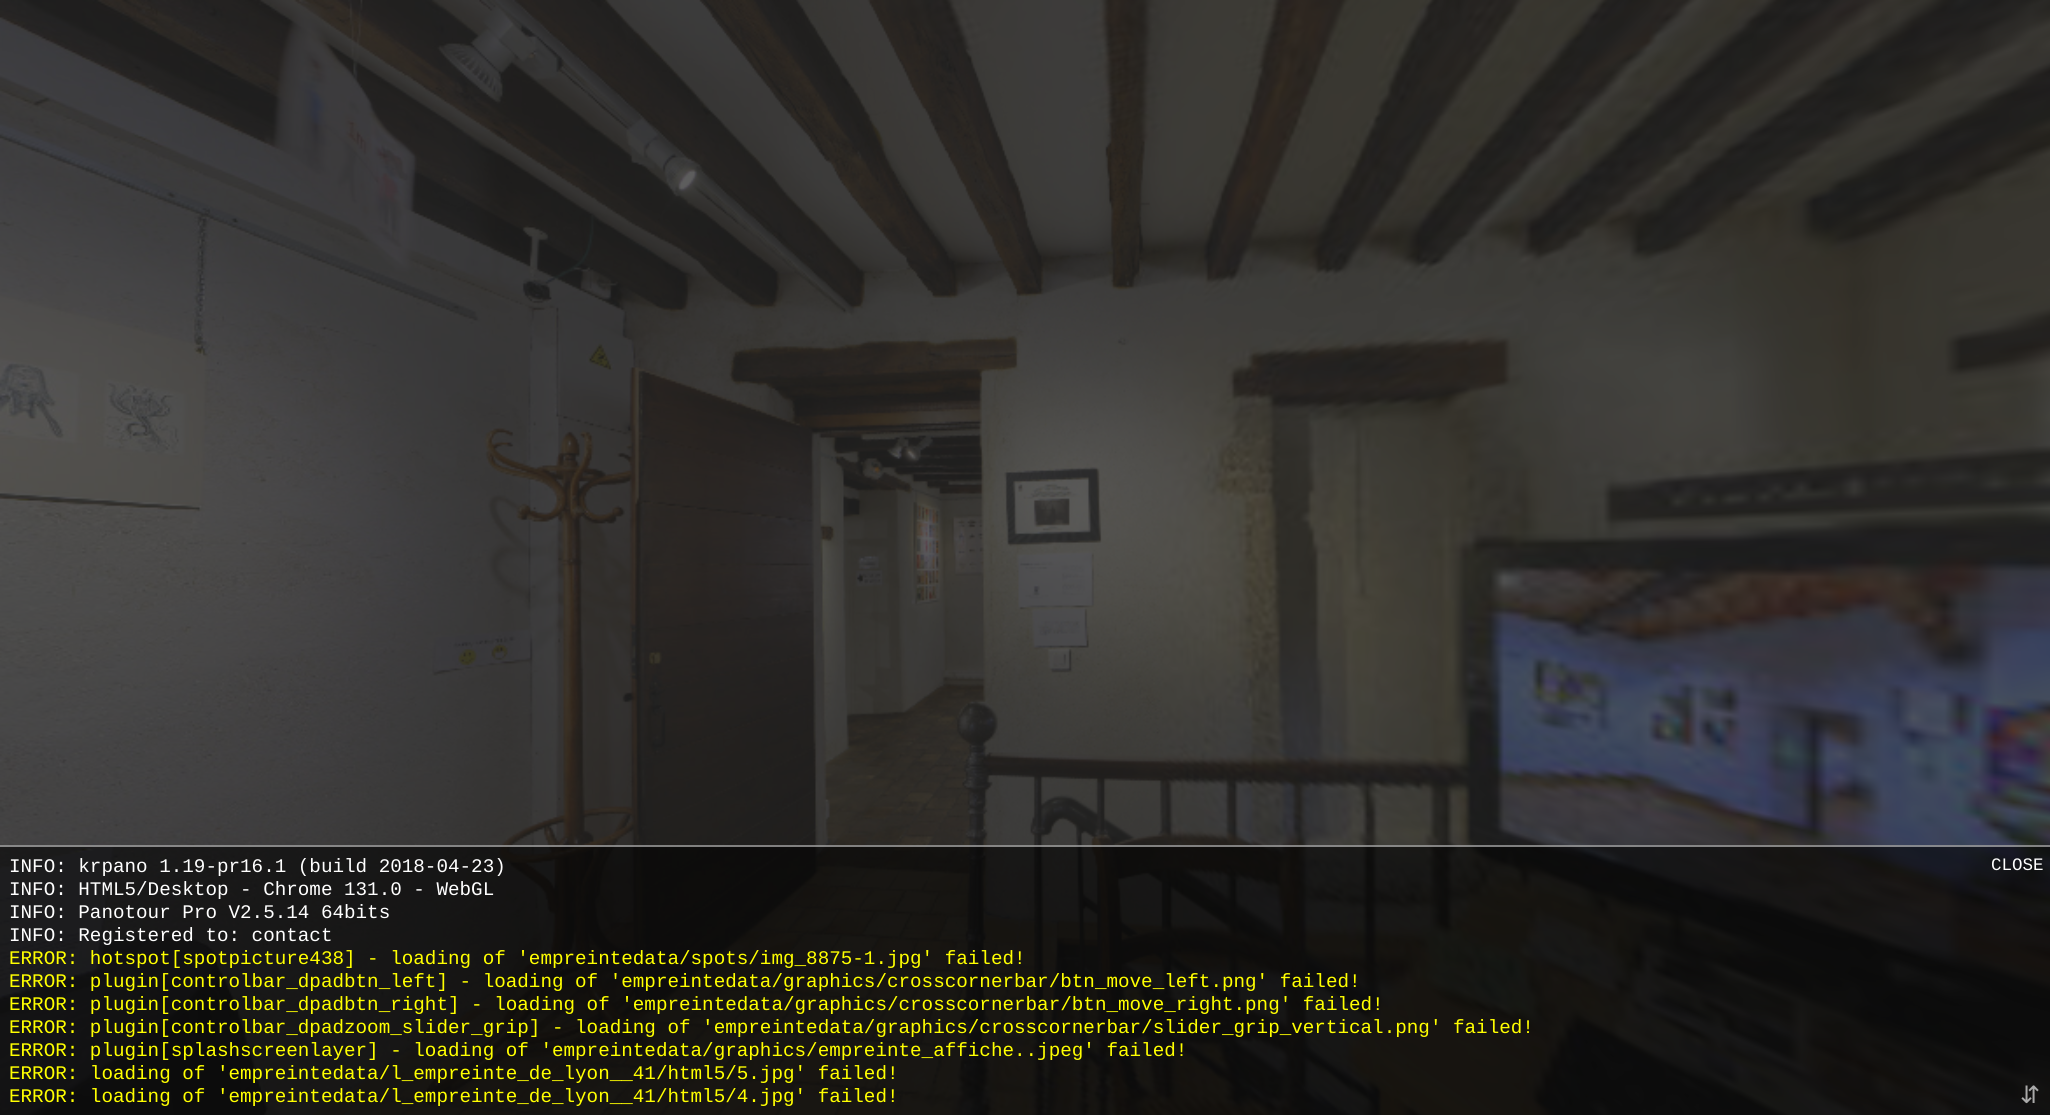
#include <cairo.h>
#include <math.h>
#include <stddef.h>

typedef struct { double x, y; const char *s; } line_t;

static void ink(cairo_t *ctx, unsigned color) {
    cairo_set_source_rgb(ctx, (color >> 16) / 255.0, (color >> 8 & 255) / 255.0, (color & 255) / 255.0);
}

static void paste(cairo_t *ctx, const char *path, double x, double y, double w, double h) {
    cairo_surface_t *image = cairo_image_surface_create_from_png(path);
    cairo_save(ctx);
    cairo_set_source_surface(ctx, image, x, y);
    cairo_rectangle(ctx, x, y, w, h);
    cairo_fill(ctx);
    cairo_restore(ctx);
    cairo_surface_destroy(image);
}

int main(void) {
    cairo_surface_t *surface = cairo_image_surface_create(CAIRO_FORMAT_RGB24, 2050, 1115);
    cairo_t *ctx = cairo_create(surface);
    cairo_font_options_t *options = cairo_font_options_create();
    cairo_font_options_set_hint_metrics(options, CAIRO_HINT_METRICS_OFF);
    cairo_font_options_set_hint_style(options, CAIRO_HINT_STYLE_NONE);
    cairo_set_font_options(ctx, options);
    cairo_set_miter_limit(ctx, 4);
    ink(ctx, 0xFFFFFF);
    cairo_paint(ctx);
    paste(ctx, "media/1.png", 0, 0, 2050, 1115);
    cairo_set_source_rgba(ctx, 0, 0, 0, 0.6);
    cairo_rectangle(ctx, 0, 845, 2050, 270);
    cairo_fill(ctx);
    cairo_set_source_rgba(ctx, 1, 1, 1, 0.48);
    cairo_rectangle(ctx, 0, 845, 2050, 2);
    cairo_fill(ctx);
    cairo_select_font_face(ctx, "Liberation Mono", CAIRO_FONT_SLANT_NORMAL, CAIRO_FONT_WEIGHT_NORMAL);
    cairo_set_font_size(ctx, 19.25);
    ink(ctx, 0xFFFFFF);
    {
        static const line_t items[] = {
            {9, 872, "INFO: krpano 1.19-pr16.1 (build 2018-04-23)"},
            {9, 895, "INFO: HTML5/Desktop - Chrome 131.0 - WebGL"},
            {9, 918, "INFO: Panotour Pro V2.5.14 64bits"},
            {9, 941, "INFO: Registered to: contact"},
        };
        for (size_t i = 0; i < sizeof items / sizeof *items; i++) {
            cairo_move_to(ctx, items[i].x, items[i].y);
            cairo_show_text(ctx, items[i].s);
        }
    }
    ink(ctx, 0xFFFF00);
    {
        static const line_t items[] = {
            {9, 964, "ERROR: hotspot[spotpicture438] - loading of 'empreintedata/spots/img_8875-1.jpg' failed!"},
            {9, 987, "ERROR: plugin[controlbar_dpadbtn_left] - loading of 'empreintedata/graphics/crosscornerbar/btn_move_left.png' failed!"},
            {9, 1010, "ERROR: plugin[controlbar_dpadbtn_right] - loading of 'empreintedata/graphics/crosscornerbar/btn_move_right.png' failed!"},
            {9, 1033, "ERROR: plugin[controlbar_dpadzoom_slider_grip] - loading of 'empreintedata/graphics/crosscornerbar/slider_grip_vertical.png' failed!"},
            {9, 1056, "ERROR: plugin[splashscreenlayer] - loading of 'empreintedata/graphics/empreinte_affiche..jpeg' failed!"},
            {9, 1079, "ERROR: loading of 'empreintedata/l_empreinte_de_lyon__41/html5/5.jpg' failed!"},
            {9, 1102, "ERROR: loading of 'empreintedata/l_empreinte_de_lyon__41/html5/4.jpg' failed!"},
        };
        for (size_t i = 0; i < sizeof items / sizeof *items; i++) {
            cairo_move_to(ctx, items[i].x, items[i].y);
            cairo_show_text(ctx, items[i].s);
        }
    }
    cairo_set_font_size(ctx, 17.5);
    ink(ctx, 0xFFFFFF);
    cairo_move_to(ctx, 1991, 870);
    cairo_show_text(ctx, "CLOSE");
    cairo_select_font_face(ctx, "DejaVu Sans", CAIRO_FONT_SLANT_NORMAL, CAIRO_FONT_WEIGHT_NORMAL);
    cairo_set_font_size(ctx, 24);
    ink(ctx, 0xAAAAAA);
    cairo_move_to(ctx, 2020, 1103);
    cairo_show_text(ctx, "⇵");
    cairo_surface_write_to_png(surface, "image.png");
    cairo_font_options_destroy(options);
    cairo_destroy(ctx);
    cairo_surface_destroy(surface);
    return 0;
}
